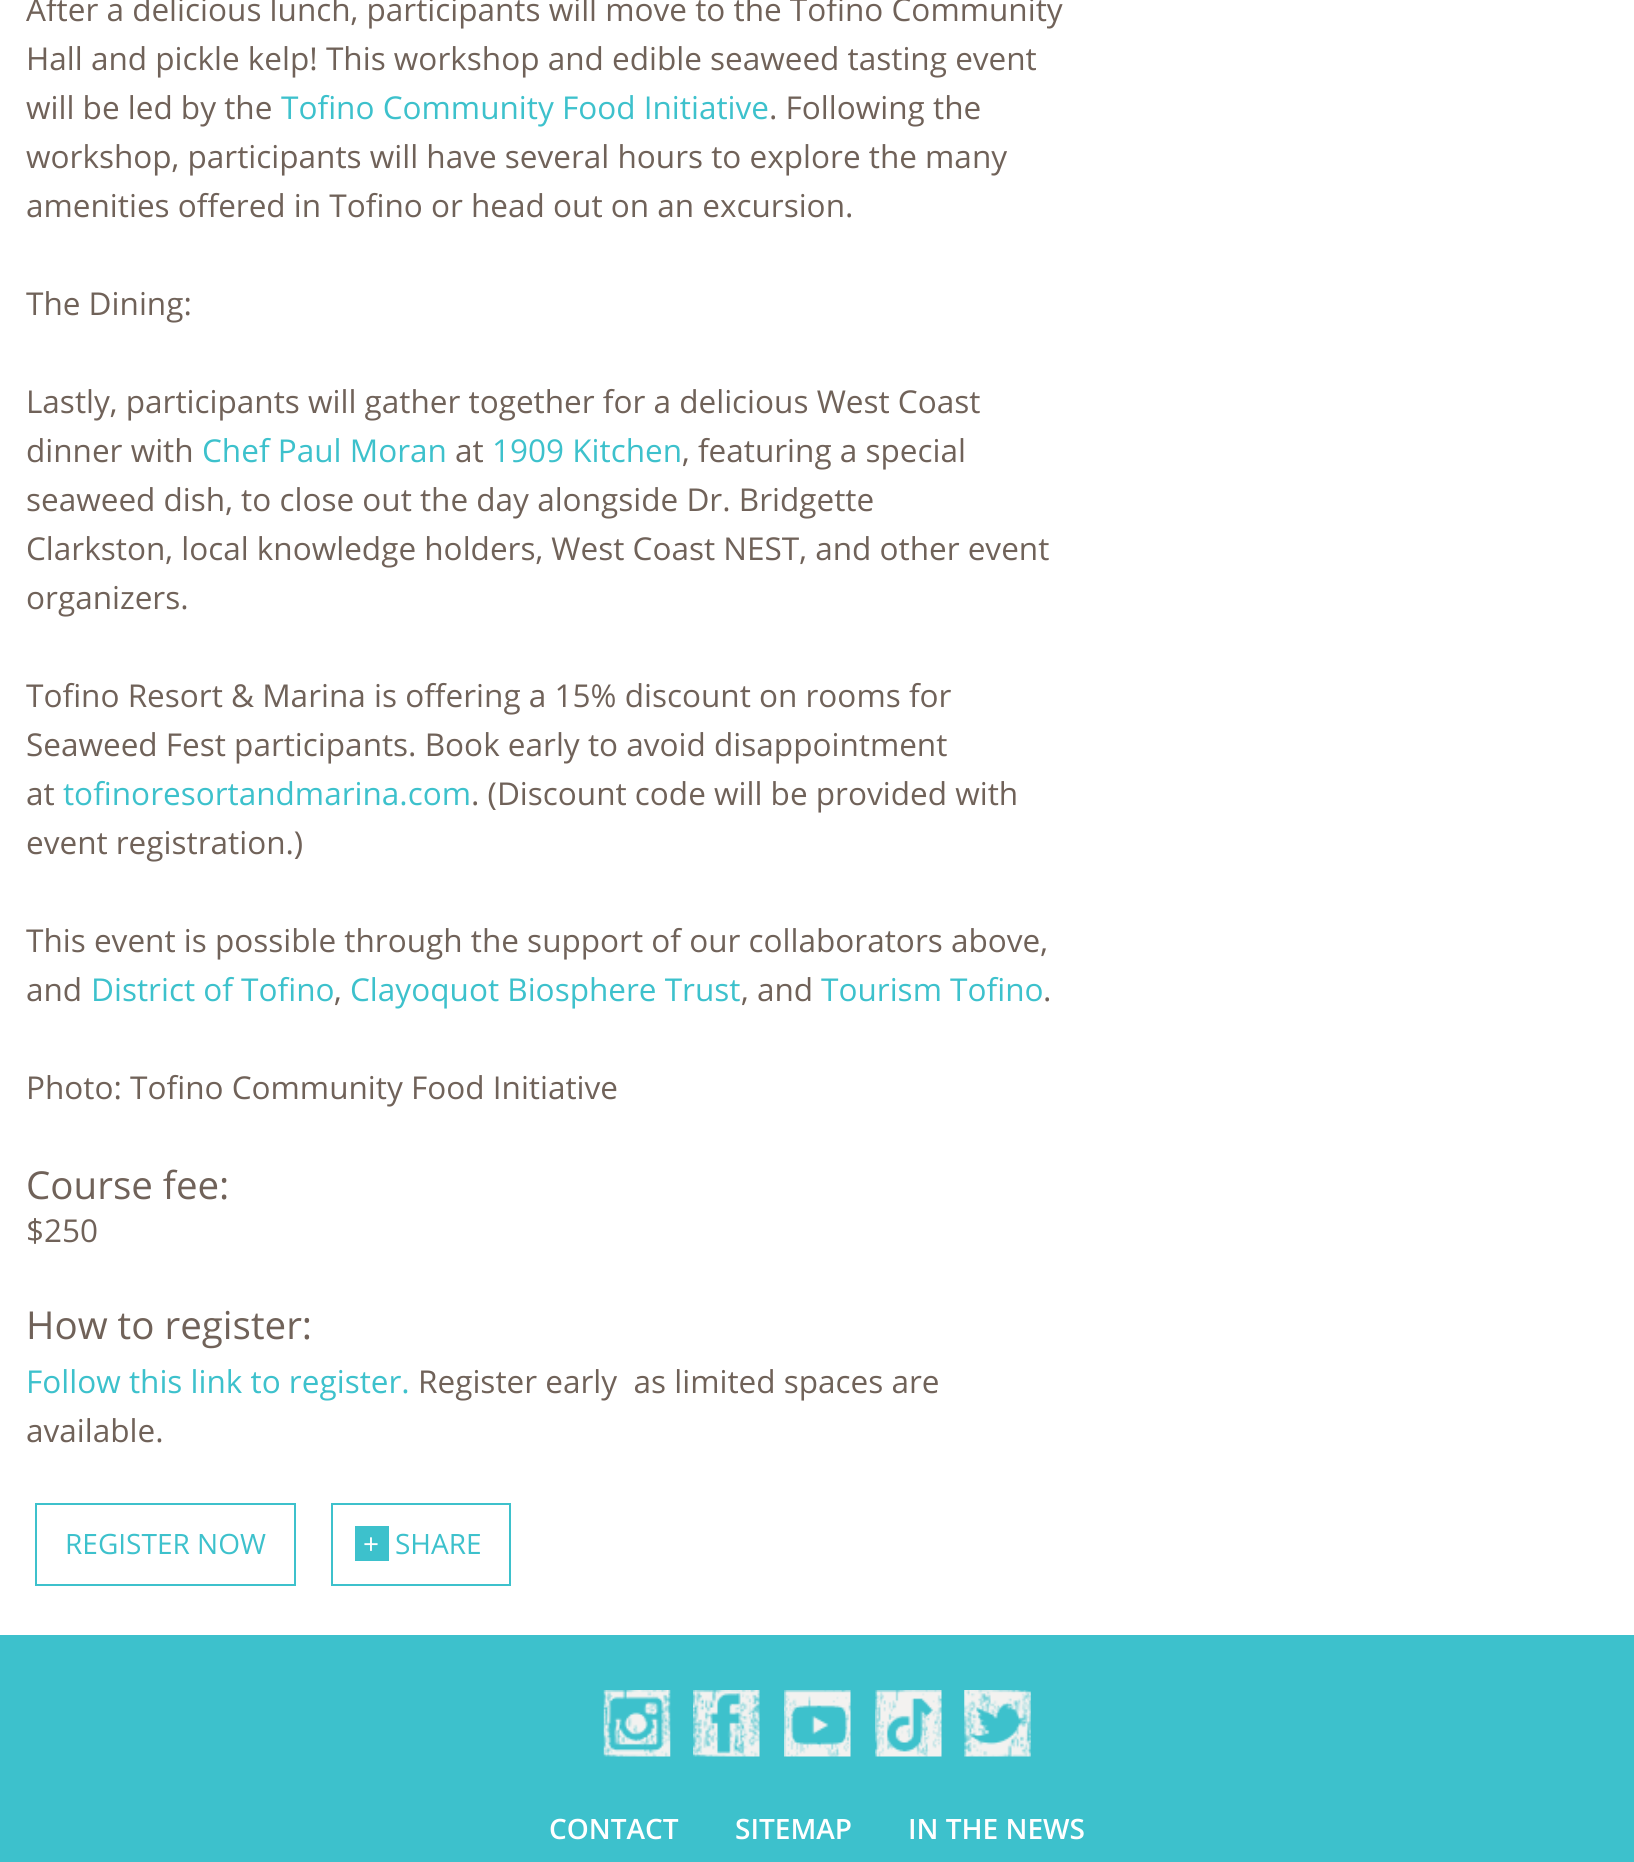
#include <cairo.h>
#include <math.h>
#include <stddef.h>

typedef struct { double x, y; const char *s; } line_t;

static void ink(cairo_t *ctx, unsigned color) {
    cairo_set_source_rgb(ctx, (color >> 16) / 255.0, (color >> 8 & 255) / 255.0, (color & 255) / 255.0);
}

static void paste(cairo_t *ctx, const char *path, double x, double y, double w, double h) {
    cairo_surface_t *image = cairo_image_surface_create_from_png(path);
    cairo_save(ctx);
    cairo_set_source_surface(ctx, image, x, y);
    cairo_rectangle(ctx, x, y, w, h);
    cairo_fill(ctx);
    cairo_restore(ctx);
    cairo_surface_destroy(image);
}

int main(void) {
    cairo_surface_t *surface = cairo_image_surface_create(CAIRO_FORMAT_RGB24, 1634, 1862);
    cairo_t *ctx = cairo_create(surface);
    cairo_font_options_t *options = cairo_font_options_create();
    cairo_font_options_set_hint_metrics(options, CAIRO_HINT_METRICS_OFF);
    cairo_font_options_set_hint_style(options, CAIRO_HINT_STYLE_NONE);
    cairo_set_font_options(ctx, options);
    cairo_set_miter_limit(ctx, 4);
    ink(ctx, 0xFFFFFF);
    cairo_paint(ctx);
    cairo_select_font_face(ctx, "Open Sans", CAIRO_FONT_SLANT_NORMAL, CAIRO_FONT_WEIGHT_NORMAL);
    cairo_set_font_size(ctx, 31.5);
    ink(ctx, 0x706259);
    {
        static const line_t items[] = {
            {26, 21, "After a delicious lunch, participants will move to the Tofino Community"},
            {26, 70, "Hall and pickle kelp! This workshop and edible seaweed tasting event"},
            {26, 119, "will be led by the"},
        };
        for (size_t i = 0; i < sizeof items / sizeof *items; i++) {
            cairo_move_to(ctx, items[i].x, items[i].y);
            cairo_show_text(ctx, items[i].s);
        }
    }
    ink(ctx, 0x3DC1CC);
    cairo_move_to(ctx, 281, 119);
    cairo_show_text(ctx, "Tofino Community Food Initiative");
    ink(ctx, 0x706259);
    {
        static const line_t items[] = {
            {769, 119, ". Following the"},
            {26, 168, "workshop, participants will have several hours to explore the many"},
            {26, 217, "amenities offered in Tofino or head out on an excursion."},
            {26, 315, "The Dining:"},
            {26, 413, "Lastly, participants will gather together for a delicious West Coast"},
            {26, 462, "dinner with"},
        };
        for (size_t i = 0; i < sizeof items / sizeof *items; i++) {
            cairo_move_to(ctx, items[i].x, items[i].y);
            cairo_show_text(ctx, items[i].s);
        }
    }
    ink(ctx, 0x3DC1CC);
    cairo_move_to(ctx, 202, 462);
    cairo_show_text(ctx, "Chef Paul Moran");
    ink(ctx, 0x706259);
    cairo_move_to(ctx, 455, 462);
    cairo_show_text(ctx, "at");
    ink(ctx, 0x3DC1CC);
    cairo_move_to(ctx, 492, 462);
    cairo_show_text(ctx, "1909 Kitchen");
    ink(ctx, 0x706259);
    {
        static const line_t items[] = {
            {682, 462, ", featuring a special"},
            {26, 511, "seaweed dish, to close out the day alongside Dr. Bridgette"},
            {26, 560, "Clarkston, local knowledge holders, West Coast NEST, and other event"},
            {26, 609, "organizers."},
            {26, 707, "Tofino Resort & Marina is offering a 15% discount on rooms for"},
            {26, 756, "Seaweed Fest participants. Book early to avoid disappointment"},
            {26, 805, "at"},
        };
        for (size_t i = 0; i < sizeof items / sizeof *items; i++) {
            cairo_move_to(ctx, items[i].x, items[i].y);
            cairo_show_text(ctx, items[i].s);
        }
    }
    ink(ctx, 0x3DC1CC);
    cairo_move_to(ctx, 63, 805);
    cairo_show_text(ctx, "tofinoresortandmarina.com");
    ink(ctx, 0x706259);
    {
        static const line_t items[] = {
            {471, 805, ". (Discount code will be provided with"},
            {26, 854, "event registration.)"},
            {26, 952, "This event is possible through the support of our collaborators above,"},
            {26, 1001, "and"},
        };
        for (size_t i = 0; i < sizeof items / sizeof *items; i++) {
            cairo_move_to(ctx, items[i].x, items[i].y);
            cairo_show_text(ctx, items[i].s);
        }
    }
    ink(ctx, 0x3DC1CC);
    cairo_move_to(ctx, 91, 1001);
    cairo_show_text(ctx, "District of Tofino");
    ink(ctx, 0x706259);
    cairo_move_to(ctx, 334, 1001);
    cairo_show_text(ctx, ",");
    ink(ctx, 0x3DC1CC);
    cairo_move_to(ctx, 350, 1001);
    cairo_show_text(ctx, "Clayoquot Biosphere Trust");
    ink(ctx, 0x706259);
    cairo_move_to(ctx, 741, 1001);
    cairo_show_text(ctx, ", and");
    ink(ctx, 0x3DC1CC);
    cairo_move_to(ctx, 821, 1001);
    cairo_show_text(ctx, "Tourism Tofino");
    ink(ctx, 0x706259);
    cairo_move_to(ctx, 1043, 1001);
    cairo_show_text(ctx, ".");
    cairo_move_to(ctx, 26, 1099);
    cairo_show_text(ctx, "Photo: Tofino Community Food Initiative");
    cairo_set_font_size(ctx, 38.5);
    cairo_move_to(ctx, 26, 1199);
    cairo_show_text(ctx, "Course fee:");
    cairo_set_font_size(ctx, 31.5);
    cairo_move_to(ctx, 26, 1242);
    cairo_show_text(ctx, "$250");
    cairo_set_font_size(ctx, 38.5);
    cairo_move_to(ctx, 26, 1339);
    cairo_show_text(ctx, "How to register:");
    cairo_set_font_size(ctx, 31.5);
    ink(ctx, 0x3DC1CC);
    cairo_move_to(ctx, 26, 1393);
    cairo_show_text(ctx, "Follow this link to register.");
    ink(ctx, 0x706259);
    cairo_move_to(ctx, 418, 1393);
    cairo_show_text(ctx, "Register early  as limited spaces are");
    cairo_move_to(ctx, 26, 1442);
    cairo_show_text(ctx, "available.");
    cairo_rectangle(ctx, 36, 1504, 259, 81);
    ink(ctx, 0x3DC1CC);
    cairo_stroke(ctx);
    cairo_set_font_size(ctx, 28);
    cairo_move_to(ctx, 65, 1554);
    cairo_show_text(ctx, "REGISTER NOW");
    cairo_rectangle(ctx, 332, 1504, 178, 81);
    cairo_stroke(ctx);
    cairo_rectangle(ctx, 355, 1526, 34, 35);
    cairo_fill(ctx);
    ink(ctx, 0xFFFFFF);
    cairo_move_to(ctx, 363, 1554);
    cairo_show_text(ctx, "+");
    ink(ctx, 0x3DC1CC);
    cairo_move_to(ctx, 395, 1554);
    cairo_show_text(ctx, "SHARE");
    cairo_rectangle(ctx, 0, 1635, 1634, 227);
    cairo_fill(ctx);
    paste(ctx, "media/1.png", 603, 1690, 68, 67);
    paste(ctx, "media/2.png", 693, 1690, 67, 67);
    paste(ctx, "media/3.png", 784, 1690, 67, 67);
    paste(ctx, "media/4.png", 875, 1690, 67, 67);
    paste(ctx, "media/5.png", 964, 1690, 67, 67);
    cairo_select_font_face(ctx, "Open Sans SemiBold", CAIRO_FONT_SLANT_NORMAL, CAIRO_FONT_WEIGHT_NORMAL);
    ink(ctx, 0xFFFFFF);
    {
        static const line_t items[] = {
            {549, 1839, "CONTACT"},
            {735, 1839, "SITEMAP"},
            {908, 1839, "IN THE NEWS"},
        };
        for (size_t i = 0; i < sizeof items / sizeof *items; i++) {
            cairo_move_to(ctx, items[i].x, items[i].y);
            cairo_show_text(ctx, items[i].s);
        }
    }
    cairo_surface_write_to_png(surface, "image.png");
    cairo_font_options_destroy(options);
    cairo_destroy(ctx);
    cairo_surface_destroy(surface);
    return 0;
}
